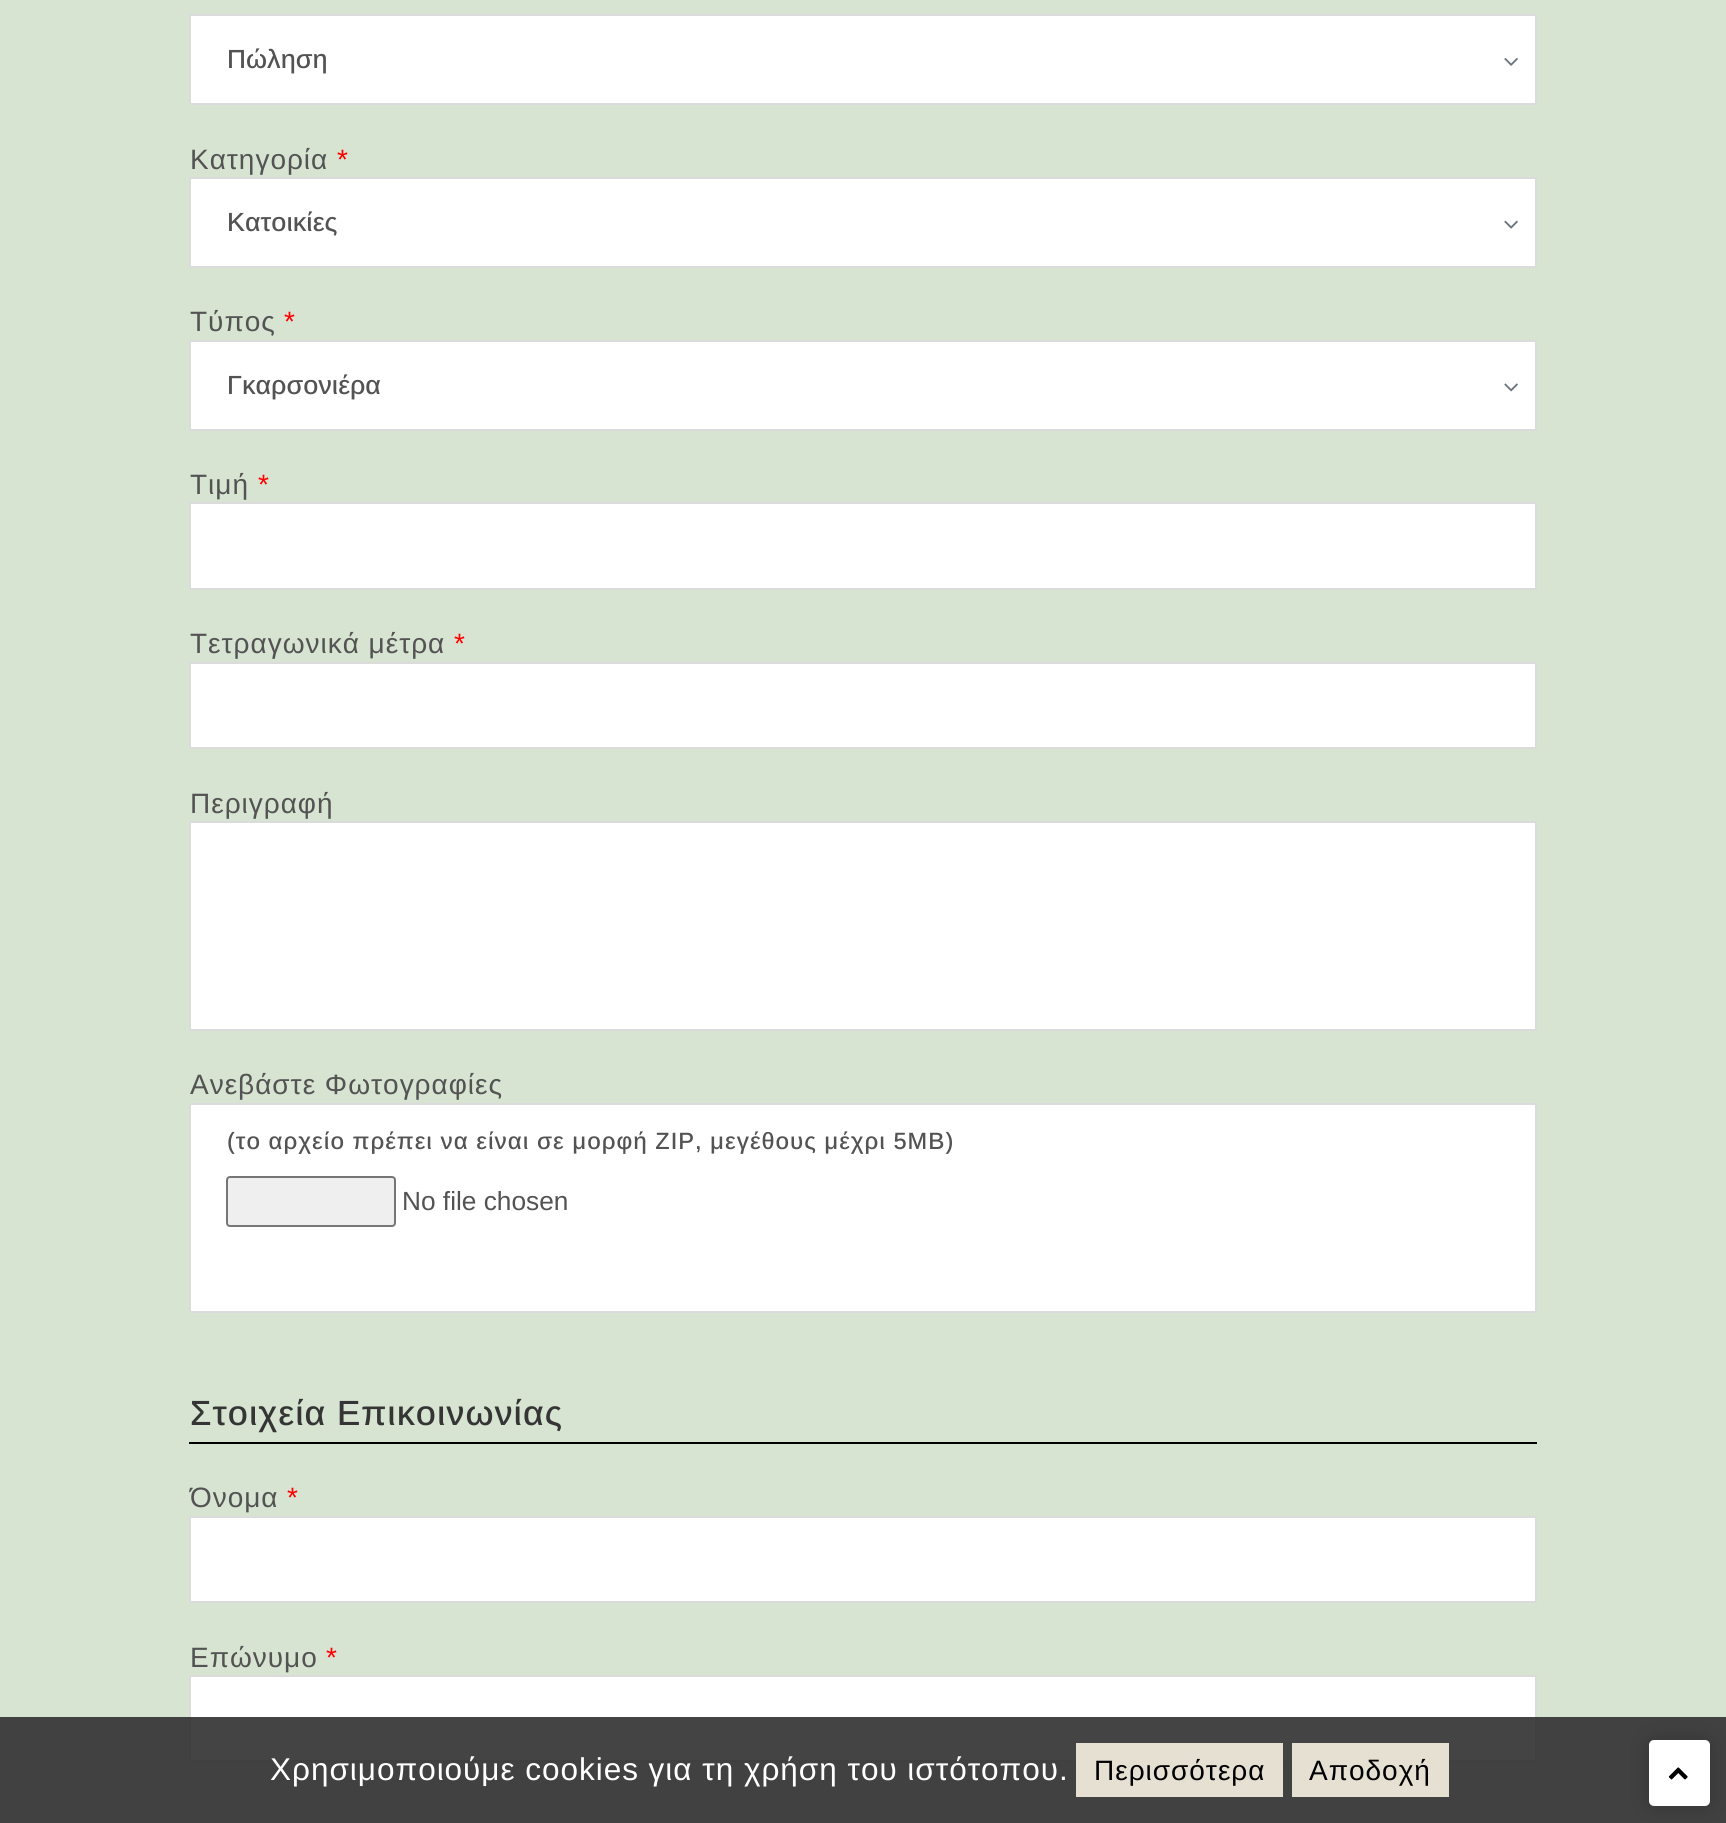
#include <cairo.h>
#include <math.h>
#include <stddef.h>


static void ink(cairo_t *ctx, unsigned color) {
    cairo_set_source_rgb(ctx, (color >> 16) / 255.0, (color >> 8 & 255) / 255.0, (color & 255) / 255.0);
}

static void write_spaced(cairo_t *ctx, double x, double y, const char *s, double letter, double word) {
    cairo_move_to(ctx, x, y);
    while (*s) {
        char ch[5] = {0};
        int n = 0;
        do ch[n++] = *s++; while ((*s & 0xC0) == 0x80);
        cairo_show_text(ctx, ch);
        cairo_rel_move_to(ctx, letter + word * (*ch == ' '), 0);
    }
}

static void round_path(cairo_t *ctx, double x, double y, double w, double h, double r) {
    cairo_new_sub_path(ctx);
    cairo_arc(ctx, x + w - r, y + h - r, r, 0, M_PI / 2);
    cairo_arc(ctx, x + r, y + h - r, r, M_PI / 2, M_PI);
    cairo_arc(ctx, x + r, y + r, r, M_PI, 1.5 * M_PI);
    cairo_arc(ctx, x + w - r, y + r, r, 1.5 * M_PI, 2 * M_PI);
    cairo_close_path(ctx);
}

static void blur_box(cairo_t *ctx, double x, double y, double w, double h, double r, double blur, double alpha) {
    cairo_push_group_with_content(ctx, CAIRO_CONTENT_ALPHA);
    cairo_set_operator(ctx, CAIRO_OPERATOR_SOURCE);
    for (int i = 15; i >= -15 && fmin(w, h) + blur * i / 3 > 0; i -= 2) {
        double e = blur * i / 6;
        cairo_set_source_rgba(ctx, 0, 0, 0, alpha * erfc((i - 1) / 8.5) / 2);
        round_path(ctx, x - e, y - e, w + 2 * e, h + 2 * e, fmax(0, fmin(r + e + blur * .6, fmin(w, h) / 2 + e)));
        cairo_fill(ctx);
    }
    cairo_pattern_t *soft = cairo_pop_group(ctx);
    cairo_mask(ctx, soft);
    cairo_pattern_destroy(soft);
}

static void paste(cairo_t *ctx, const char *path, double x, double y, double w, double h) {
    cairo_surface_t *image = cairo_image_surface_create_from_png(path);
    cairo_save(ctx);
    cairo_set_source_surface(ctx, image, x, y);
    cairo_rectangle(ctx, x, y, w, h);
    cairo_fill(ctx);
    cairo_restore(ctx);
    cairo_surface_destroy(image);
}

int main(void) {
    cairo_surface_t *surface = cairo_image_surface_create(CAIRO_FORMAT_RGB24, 1726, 1823);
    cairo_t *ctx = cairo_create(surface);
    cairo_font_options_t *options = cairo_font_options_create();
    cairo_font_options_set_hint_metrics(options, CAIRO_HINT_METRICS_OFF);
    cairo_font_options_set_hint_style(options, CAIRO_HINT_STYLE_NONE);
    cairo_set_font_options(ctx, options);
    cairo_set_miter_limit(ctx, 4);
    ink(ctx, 0xD7E4D2);
    cairo_paint(ctx);
    ink(ctx, 0xFFFFFF);
    cairo_rectangle(ctx, 190, 15, 1346, 89);
    cairo_fill_preserve(ctx);
    ink(ctx, 0xDBDBDB);
    cairo_stroke(ctx);
    cairo_select_font_face(ctx, "Arimo Medium", CAIRO_FONT_SLANT_NORMAL, CAIRO_FONT_WEIGHT_NORMAL);
    cairo_set_font_size(ctx, 26.25);
    ink(ctx, 0x535353);
    cairo_move_to(ctx, 227, 68);
    cairo_show_text(ctx, "Πώληση");
    paste(ctx, "media/1.png", 1504, 58, 14, 8);
    cairo_select_font_face(ctx, "Arimo", CAIRO_FONT_SLANT_NORMAL, CAIRO_FONT_WEIGHT_NORMAL);
    cairo_set_font_size(ctx, 28);
    write_spaced(ctx, 190, 169, "Κατηγορία", 0.98, 0);
    ink(ctx, 0xFF0000);
    write_spaced(ctx, 337, 169, "*", 0.98, 0);
    ink(ctx, 0xFFFFFF);
    cairo_rectangle(ctx, 190, 178, 1346, 89);
    cairo_fill_preserve(ctx);
    ink(ctx, 0xDBDBDB);
    cairo_stroke(ctx);
    cairo_select_font_face(ctx, "Arimo Medium", CAIRO_FONT_SLANT_NORMAL, CAIRO_FONT_WEIGHT_NORMAL);
    cairo_set_font_size(ctx, 26.25);
    ink(ctx, 0x535353);
    cairo_move_to(ctx, 227, 231);
    cairo_show_text(ctx, "Κατοικίες");
    paste(ctx, "media/2.png", 1504, 220, 14, 9);
    cairo_select_font_face(ctx, "Arimo", CAIRO_FONT_SLANT_NORMAL, CAIRO_FONT_WEIGHT_NORMAL);
    cairo_set_font_size(ctx, 28);
    write_spaced(ctx, 190, 331, "Τύπος", 0.98, 0);
    ink(ctx, 0xFF0000);
    write_spaced(ctx, 284, 331, "*", 0.98, 0);
    ink(ctx, 0xFFFFFF);
    cairo_rectangle(ctx, 190, 341, 1346, 89);
    cairo_fill_preserve(ctx);
    ink(ctx, 0xDBDBDB);
    cairo_stroke(ctx);
    cairo_select_font_face(ctx, "Arimo Medium", CAIRO_FONT_SLANT_NORMAL, CAIRO_FONT_WEIGHT_NORMAL);
    cairo_set_font_size(ctx, 26.25);
    ink(ctx, 0x535353);
    cairo_move_to(ctx, 227, 394);
    cairo_show_text(ctx, "Γκαρσονιέρα");
    paste(ctx, "media/3.png", 1504, 383, 14, 9);
    cairo_select_font_face(ctx, "Arimo", CAIRO_FONT_SLANT_NORMAL, CAIRO_FONT_WEIGHT_NORMAL);
    cairo_set_font_size(ctx, 28);
    write_spaced(ctx, 190, 494, "Τιμή", 0.98, 0);
    ink(ctx, 0xFF0000);
    write_spaced(ctx, 258, 494, "*", 0.98, 0);
    ink(ctx, 0xFFFFFF);
    cairo_rectangle(ctx, 190, 503, 1346, 86);
    cairo_fill_preserve(ctx);
    ink(ctx, 0xDBDBDB);
    cairo_stroke(ctx);
    ink(ctx, 0x535353);
    write_spaced(ctx, 190, 653, "Τετραγωνικά μέτρα", 0.98, 0);
    ink(ctx, 0xFF0000);
    write_spaced(ctx, 454, 653, "*", 0.98, 0);
    ink(ctx, 0xFFFFFF);
    cairo_rectangle(ctx, 190, 663, 1346, 85);
    cairo_fill_preserve(ctx);
    ink(ctx, 0xDBDBDB);
    cairo_stroke(ctx);
    ink(ctx, 0x535353);
    write_spaced(ctx, 190, 813, "Περιγραφή", 0.98, 0);
    ink(ctx, 0xFFFFFF);
    cairo_rectangle(ctx, 190, 822, 1346, 208);
    cairo_fill_preserve(ctx);
    ink(ctx, 0xDBDBDB);
    cairo_stroke(ctx);
    ink(ctx, 0x535353);
    write_spaced(ctx, 190, 1094, "Ανεβάστε Φωτογραφίες", 0.98, 0);
    ink(ctx, 0xFFFFFF);
    cairo_rectangle(ctx, 190, 1104, 1346, 208);
    cairo_fill_preserve(ctx);
    ink(ctx, 0xDBDBDB);
    cairo_stroke(ctx);
    cairo_select_font_face(ctx, "Arimo Medium", CAIRO_FONT_SLANT_NORMAL, CAIRO_FONT_WEIGHT_NORMAL);
    cairo_set_font_size(ctx, 23.6);
    ink(ctx, 0x535353);
    write_spaced(ctx, 227, 1149, "(το αρχείο πρέπει να είναι σε μορφή ZIP, μεγέθους μέχρι 5ΜΒ)", 0.98, 0);
    ink(ctx, 0xEFEFEF);
    round_path(ctx, 227, 1177, 168, 49, 3);
    cairo_fill_preserve(ctx);
    ink(ctx, 0x767676);
    cairo_stroke(ctx);
    cairo_select_font_face(ctx, "Arimo", CAIRO_FONT_SLANT_NORMAL, CAIRO_FONT_WEIGHT_NORMAL);
    cairo_set_font_size(ctx, 26.25);
    ink(ctx, 0x535353);
    cairo_move_to(ctx, 402, 1210);
    cairo_show_text(ctx, "No file chosen");
    cairo_select_font_face(ctx, "Arimo Medium", CAIRO_FONT_SLANT_NORMAL, CAIRO_FONT_WEIGHT_NORMAL);
    cairo_set_font_size(ctx, 35);
    ink(ctx, 0x353535);
    write_spaced(ctx, 190, 1425, "Στοιχεία Επικοινωνίας", 0.98, 0);
    ink(ctx, 0x000001);
    cairo_rectangle(ctx, 189, 1442, 1348, 2);
    cairo_fill(ctx);
    cairo_select_font_face(ctx, "Arimo", CAIRO_FONT_SLANT_NORMAL, CAIRO_FONT_WEIGHT_NORMAL);
    cairo_set_font_size(ctx, 28);
    ink(ctx, 0x535353);
    write_spaced(ctx, 190, 1507, "Όνομα", 0.98, 0);
    ink(ctx, 0xFF0000);
    write_spaced(ctx, 287, 1507, "*", 0.98, 0);
    ink(ctx, 0xFFFFFF);
    cairo_rectangle(ctx, 190, 1517, 1346, 85);
    cairo_fill_preserve(ctx);
    ink(ctx, 0xDBDBDB);
    cairo_stroke(ctx);
    ink(ctx, 0x535353);
    write_spaced(ctx, 190, 1667, "Επώνυμο", 0.98, 0);
    ink(ctx, 0xFF0000);
    write_spaced(ctx, 326, 1667, "*", 0.98, 0);
    ink(ctx, 0xFFFFFF);
    cairo_rectangle(ctx, 190, 1676, 1346, 85);
    cairo_fill_preserve(ctx);
    ink(ctx, 0xDBDBDB);
    cairo_stroke(ctx);
    cairo_set_source_rgba(ctx, 0.188, 0.188, 0.188, 0.9);
    cairo_rectangle(ctx, 0, 1717, 1726, 106);
    cairo_fill(ctx);
    cairo_set_font_size(ctx, 31.5);
    ink(ctx, 0xFFFFFF);
    write_spaced(ctx, 270, 1780, "Χρησιμοποιούμε cookies για τη χρήση του ιστότοπου.", 0.98, 0);
    ink(ctx, 0xE5E0D1);
    cairo_rectangle(ctx, 1076, 1743, 207, 54);
    cairo_fill(ctx);
    cairo_set_font_size(ctx, 28);
    ink(ctx, 0x000000);
    write_spaced(ctx, 1094, 1780, "Περισσότερα", 0.98, 0);
    ink(ctx, 0xE5E0D1);
    cairo_rectangle(ctx, 1292, 1743, 157, 54);
    cairo_fill(ctx);
    ink(ctx, 0x000000);
    write_spaced(ctx, 1309, 1780, "Αποδοχή", 0.98, 0);
    ink(ctx, 0x000000);
    blur_box(ctx, 1649, 1740, 61, 66, 5, 10.5, 0.2);
    ink(ctx, 0xFFFFFF);
    round_path(ctx, 1649, 1740, 61, 66, 5);
    cairo_fill(ctx);
    paste(ctx, "media/4.png", 1668, 1767, 20, 13);
    cairo_surface_write_to_png(surface, "image.png");
    cairo_font_options_destroy(options);
    cairo_destroy(ctx);
    cairo_surface_destroy(surface);
    return 0;
}
